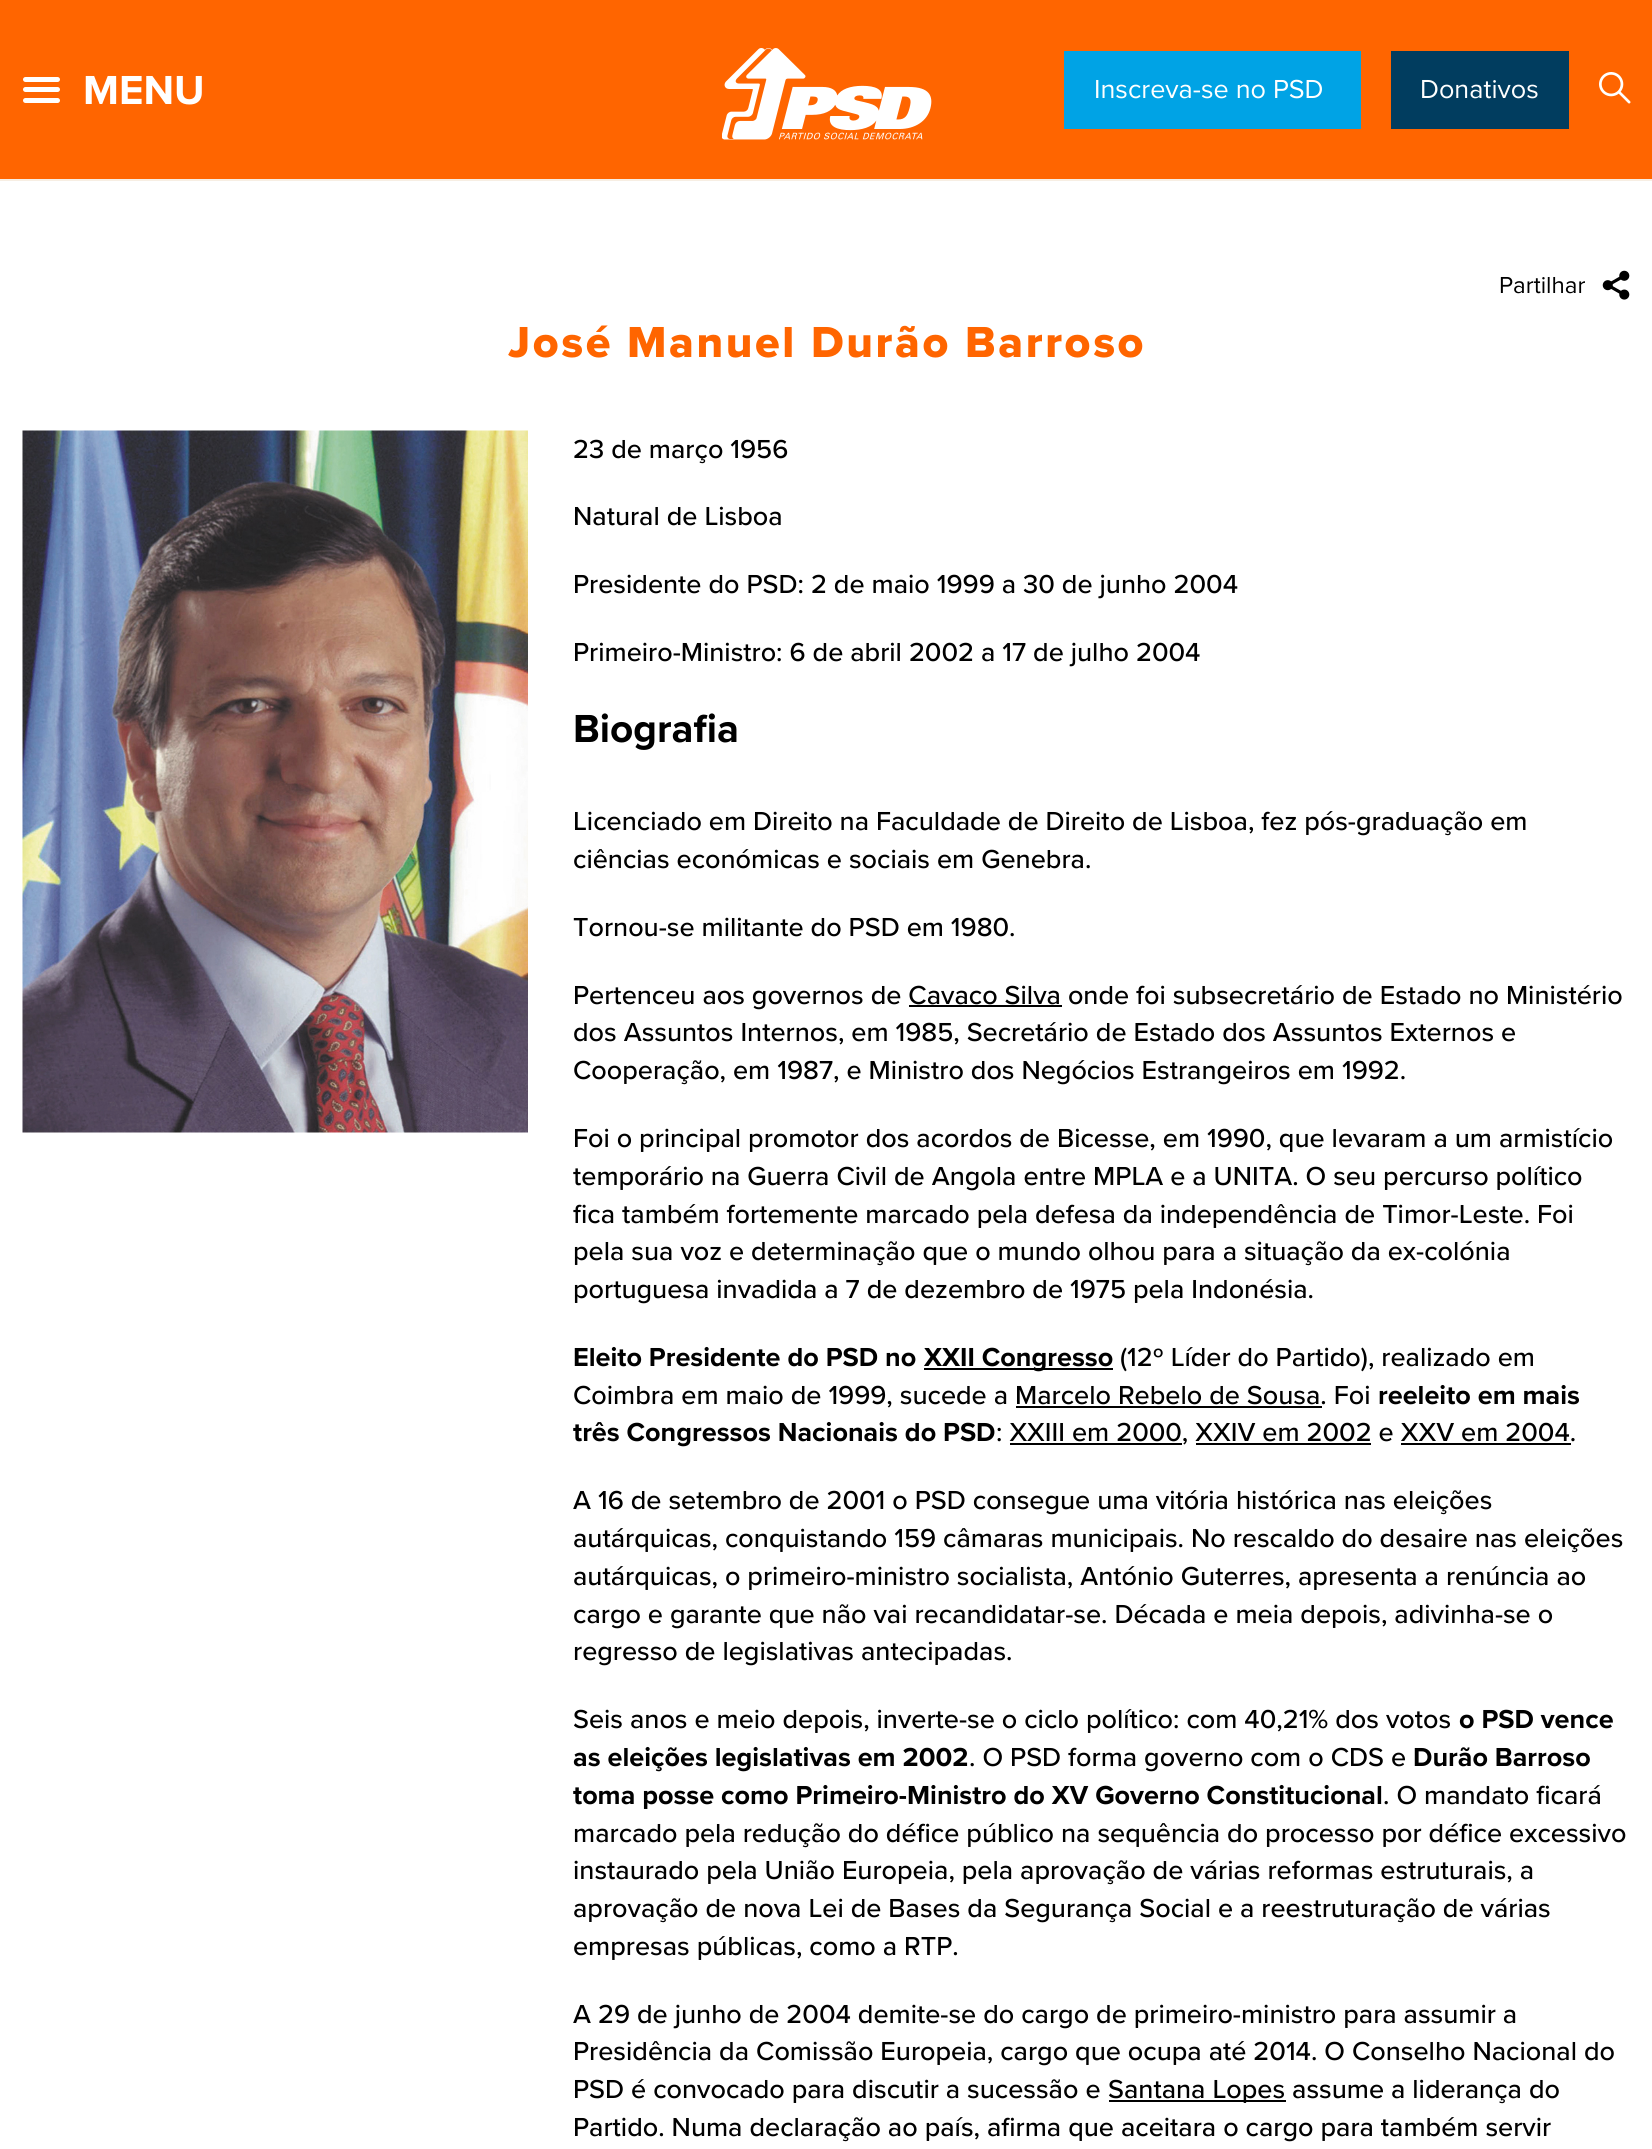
#include <cairo.h>
#include <math.h>
#include <stddef.h>

typedef struct { double x, y; const char *s; } line_t;
typedef struct { double x, y, w, h; unsigned color; } box_t;

static void ink(cairo_t *ctx, unsigned color) {
    cairo_set_source_rgb(ctx, (color >> 16) / 255.0, (color >> 8 & 255) / 255.0, (color & 255) / 255.0);
}

static void write_spaced(cairo_t *ctx, double x, double y, const char *s, double letter, double word) {
    cairo_move_to(ctx, x, y);
    while (*s) {
        char ch[5] = {0};
        int n = 0;
        do ch[n++] = *s++; while ((*s & 0xC0) == 0x80);
        cairo_show_text(ctx, ch);
        cairo_rel_move_to(ctx, letter + word * (*ch == ' '), 0);
    }
}

static void round_path(cairo_t *ctx, double x, double y, double w, double h, double r) {
    cairo_new_sub_path(ctx);
    cairo_arc(ctx, x + w - r, y + h - r, r, 0, M_PI / 2);
    cairo_arc(ctx, x + r, y + h - r, r, M_PI / 2, M_PI);
    cairo_arc(ctx, x + r, y + r, r, M_PI, 1.5 * M_PI);
    cairo_arc(ctx, x + w - r, y + r, r, 1.5 * M_PI, 2 * M_PI);
    cairo_close_path(ctx);
}

static void paste(cairo_t *ctx, const char *path, double x, double y, double w, double h) {
    cairo_surface_t *image = cairo_image_surface_create_from_png(path);
    cairo_save(ctx);
    cairo_set_source_surface(ctx, image, x, y);
    cairo_rectangle(ctx, x, y, w, h);
    cairo_fill(ctx);
    cairo_restore(ctx);
    cairo_surface_destroy(image);
}

int main(void) {
    cairo_surface_t *surface = cairo_image_surface_create(CAIRO_FORMAT_RGB24, 1652, 2149);
    cairo_t *ctx = cairo_create(surface);
    cairo_font_options_t *options = cairo_font_options_create();
    cairo_font_options_set_hint_metrics(options, CAIRO_HINT_METRICS_OFF);
    cairo_font_options_set_hint_style(options, CAIRO_HINT_STYLE_NONE);
    cairo_set_font_options(ctx, options);
    cairo_set_miter_limit(ctx, 4);
    ink(ctx, 0xFFFFFF);
    cairo_paint(ctx);
    ink(ctx, 0xFF6500);
    cairo_rectangle(ctx, 0, 0, 1652, 179);
    cairo_fill(ctx);
    ink(ctx, 0xF7EEE3);
    cairo_rectangle(ctx, 0, 179, 1652, 2);
    cairo_fill(ctx);
    ink(ctx, 0xFFFFFF);
    round_path(ctx, 23, 87, 37, 5, 2.5);
    cairo_fill(ctx);
    round_path(ctx, 23, 77, 37, 5, 2.5);
    cairo_fill(ctx);
    round_path(ctx, 23, 98, 37, 5, 2.5);
    cairo_fill(ctx);
    cairo_select_font_face(ctx, "Proxima Nova", CAIRO_FONT_SLANT_NORMAL, CAIRO_FONT_WEIGHT_BOLD);
    cairo_set_font_size(ctx, 42);
    cairo_move_to(ctx, 83, 104);
    cairo_show_text(ctx, "MENU");
    paste(ctx, "media/1.png", 722, 48, 210, 92);
    ink(ctx, 0x00A3E5);
    cairo_rectangle(ctx, 1064, 51, 297, 78);
    cairo_fill(ctx);
    cairo_select_font_face(ctx, "Proxima Nova", CAIRO_FONT_SLANT_NORMAL, CAIRO_FONT_WEIGHT_NORMAL);
    cairo_set_font_size(ctx, 27);
    ink(ctx, 0xFFFFFF);
    cairo_move_to(ctx, 1094, 98);
    cairo_show_text(ctx, "Inscreva-se no PSD");
    ink(ctx, 0x013D5F);
    cairo_rectangle(ctx, 1391, 51, 178, 78);
    cairo_fill(ctx);
    ink(ctx, 0xFFFFFF);
    cairo_move_to(ctx, 1420, 98);
    cairo_show_text(ctx, "Donativos");
    paste(ctx, "media/2.png", 1599, 72, 32, 32);
    paste(ctx, "media/3.png", 1602, 270, 28, 30);
    cairo_set_font_size(ctx, 24);
    ink(ctx, 0x000000);
    cairo_move_to(ctx, 1499, 293);
    cairo_show_text(ctx, "Partilhar");
    cairo_select_font_face(ctx, "Proxima Nova ExtraBold", CAIRO_FONT_SLANT_NORMAL, CAIRO_FONT_WEIGHT_NORMAL);
    cairo_set_font_size(ctx, 45);
    ink(ctx, 0xFF6500);
    write_spaced(ctx, 508, 357, "José Manuel Durão Barroso", 2.6, 0);
    paste(ctx, "media/4.png", 22, 430, 506, 703);
    cairo_select_font_face(ctx, "Proxima Nova Medium", CAIRO_FONT_SLANT_NORMAL, CAIRO_FONT_WEIGHT_NORMAL);
    cairo_set_font_size(ctx, 27);
    ink(ctx, 0x000000);
    {
        static const line_t items[] = {
            {573, 458, "23 de março 1956"},
            {573, 525, "Natural de Lisboa"},
            {573, 593, "Presidente do PSD: 2 de maio 1999 a 30 de junho 2004"},
            {573, 661, "Primeiro-Ministro: 6 de abril 2002 a 17 de julho 2004"},
        };
        for (size_t i = 0; i < sizeof items / sizeof *items; i++) {
            cairo_move_to(ctx, items[i].x, items[i].y);
            cairo_show_text(ctx, items[i].s);
        }
    }
    cairo_select_font_face(ctx, "Proxima Nova", CAIRO_FONT_SLANT_NORMAL, CAIRO_FONT_WEIGHT_BOLD);
    cairo_set_font_size(ctx, 40.5);
    cairo_move_to(ctx, 573, 742);
    cairo_show_text(ctx, "Biografia");
    cairo_select_font_face(ctx, "Proxima Nova Medium", CAIRO_FONT_SLANT_NORMAL, CAIRO_FONT_WEIGHT_NORMAL);
    cairo_set_font_size(ctx, 27);
    {
        static const line_t items[] = {
            {573, 830, "Licenciado em Direito na Faculdade de Direito de Lisboa, fez pós-graduação em"},
            {573, 868, "ciências económicas e sociais em Genebra."},
            {573, 936, "Tornou-se militante do PSD em 1980."},
            {573, 1004, "Pertenceu aos governos de Cavaco Silva onde foi subsecretário de Estado no Ministério"},
        };
        for (size_t i = 0; i < sizeof items / sizeof *items; i++) {
            cairo_move_to(ctx, items[i].x, items[i].y);
            cairo_show_text(ctx, items[i].s);
        }
    }
    cairo_rectangle(ctx, 909, 1005, 153, 2);
    cairo_fill(ctx);
    {
        static const line_t items[] = {
            {573, 1041, "dos Assuntos Internos, em 1985, Secretário de Estado dos Assuntos Externos e"},
            {573, 1079, "Cooperação, em 1987, e Ministro dos Negócios Estrangeiros em 1992."},
            {573, 1147, "Foi o principal promotor dos acordos de Bicesse, em 1990, que levaram a um armistício"},
            {573, 1185, "temporário na Guerra Civil de Angola entre MPLA e a UNITA. O seu percurso político"},
            {573, 1223, "fica também fortemente marcado pela defesa da independência de Timor-Leste. Foi"},
            {573, 1260, "pela sua voz e determinação que o mundo olhou para a situação da ex-colónia"},
            {573, 1298, "portuguesa invadida a 7 de dezembro de 1975 pela Indonésia."},
        };
        for (size_t i = 0; i < sizeof items / sizeof *items; i++) {
            cairo_move_to(ctx, items[i].x, items[i].y);
            cairo_show_text(ctx, items[i].s);
        }
    }
    cairo_select_font_face(ctx, "Proxima Nova", CAIRO_FONT_SLANT_NORMAL, CAIRO_FONT_WEIGHT_BOLD);
    cairo_move_to(ctx, 573, 1366);
    cairo_show_text(ctx, "Eleito Presidente do PSD no");
    cairo_rectangle(ctx, 924, 1368, 189, 2);
    cairo_fill(ctx);
    cairo_move_to(ctx, 924, 1366);
    cairo_show_text(ctx, "XXII Congresso");
    cairo_select_font_face(ctx, "Proxima Nova Medium", CAIRO_FONT_SLANT_NORMAL, CAIRO_FONT_WEIGHT_NORMAL);
    cairo_move_to(ctx, 1120, 1366);
    cairo_show_text(ctx, "(12º Líder do Partido), realizado em");
    cairo_move_to(ctx, 573, 1404);
    cairo_show_text(ctx, "Coimbra em maio de 1999, sucede a Marcelo Rebelo de Sousa. Foi");
    cairo_select_font_face(ctx, "Proxima Nova", CAIRO_FONT_SLANT_NORMAL, CAIRO_FONT_WEIGHT_BOLD);
    cairo_move_to(ctx, 1378, 1404);
    cairo_show_text(ctx, "reeleito em mais");
    cairo_rectangle(ctx, 1016, 1406, 306, 2);
    cairo_fill(ctx);
    cairo_move_to(ctx, 573, 1441);
    cairo_show_text(ctx, "três Congressos Nacionais do PSD");
    cairo_select_font_face(ctx, "Proxima Nova Medium", CAIRO_FONT_SLANT_NORMAL, CAIRO_FONT_WEIGHT_NORMAL);
    cairo_move_to(ctx, 996, 1441);
    cairo_show_text(ctx, ": XXIII em 2000, XXIV em 2002 e XXV em 2004.");
    {
        static const box_t items[] = {
            {1010, 1443, 172, 2, 0x000000},
            {1196, 1443, 175, 2, 0x000000},
            {1401, 1443, 170, 2, 0x000000},
        };
        for (size_t i = 0; i < sizeof items / sizeof *items; i++) {
            ink(ctx, items[i].color);
            cairo_rectangle(ctx, items[i].x, items[i].y, items[i].w, items[i].h);
            cairo_fill(ctx);
        }
    }
    {
        static const line_t items[] = {
            {573, 1509, "A 16 de setembro de 2001 o PSD consegue uma vitória histórica nas eleições"},
            {573, 1547, "autárquicas, conquistando 159 câmaras municipais. No rescaldo do desaire nas eleições"},
            {573, 1585, "autárquicas, o primeiro-ministro socialista, António Guterres, apresenta a renúncia ao"},
            {573, 1623, "cargo e garante que não vai recandidatar-se. Década e meia depois, adivinha-se o"},
            {573, 1660, "regresso de legislativas antecipadas."},
            {573, 1728, "Seis anos e meio depois, inverte-se o ciclo político: com 40,21% dos votos"},
        };
        for (size_t i = 0; i < sizeof items / sizeof *items; i++) {
            cairo_move_to(ctx, items[i].x, items[i].y);
            cairo_show_text(ctx, items[i].s);
        }
    }
    cairo_select_font_face(ctx, "Proxima Nova", CAIRO_FONT_SLANT_NORMAL, CAIRO_FONT_WEIGHT_BOLD);
    cairo_move_to(ctx, 1459, 1728);
    cairo_show_text(ctx, "o PSD vence");
    cairo_move_to(ctx, 573, 1766);
    cairo_show_text(ctx, "as eleições legislativas em 2002");
    cairo_select_font_face(ctx, "Proxima Nova Medium", CAIRO_FONT_SLANT_NORMAL, CAIRO_FONT_WEIGHT_NORMAL);
    cairo_move_to(ctx, 969, 1766);
    cairo_show_text(ctx, ". O PSD forma governo com o CDS e");
    cairo_select_font_face(ctx, "Proxima Nova", CAIRO_FONT_SLANT_NORMAL, CAIRO_FONT_WEIGHT_BOLD);
    cairo_move_to(ctx, 1413, 1766);
    cairo_show_text(ctx, "Durão Barroso");
    cairo_move_to(ctx, 573, 1804);
    cairo_show_text(ctx, "toma posse como Primeiro-Ministro do XV Governo Constitucional");
    cairo_select_font_face(ctx, "Proxima Nova Medium", CAIRO_FONT_SLANT_NORMAL, CAIRO_FONT_WEIGHT_NORMAL);
    {
        static const line_t items[] = {
            {1383, 1804, ". O mandato ficará"},
            {573, 1842, "marcado pela redução do défice público na sequência do processo por défice excessivo"},
            {573, 1879, "instaurado pela União Europeia, pela aprovação de várias reformas estruturais, a"},
            {573, 1917, "aprovação de nova Lei de Bases da Segurança Social e a reestruturação de várias"},
            {573, 1955, "empresas públicas, como a RTP."},
            {573, 2023, "A 29 de junho de 2004 demite-se do cargo de primeiro-ministro para assumir a"},
            {573, 2060, "Presidência da Comissão Europeia, cargo que ocupa até 2014. O Conselho Nacional do"},
            {573, 2098, "PSD é convocado para discutir a sucessão e"},
        };
        for (size_t i = 0; i < sizeof items / sizeof *items; i++) {
            cairo_move_to(ctx, items[i].x, items[i].y);
            cairo_show_text(ctx, items[i].s);
        }
    }
    cairo_rectangle(ctx, 1109, 2100, 177, 2);
    cairo_fill(ctx);
    cairo_move_to(ctx, 1108, 2098);
    cairo_show_text(ctx, "Santana Lopes assume a liderança do");
    cairo_move_to(ctx, 573, 2136);
    cairo_show_text(ctx, "Partido. Numa declaração ao país, afirma que aceitara o cargo para também servir");
    cairo_surface_write_to_png(surface, "image.png");
    cairo_font_options_destroy(options);
    cairo_destroy(ctx);
    cairo_surface_destroy(surface);
    return 0;
}
